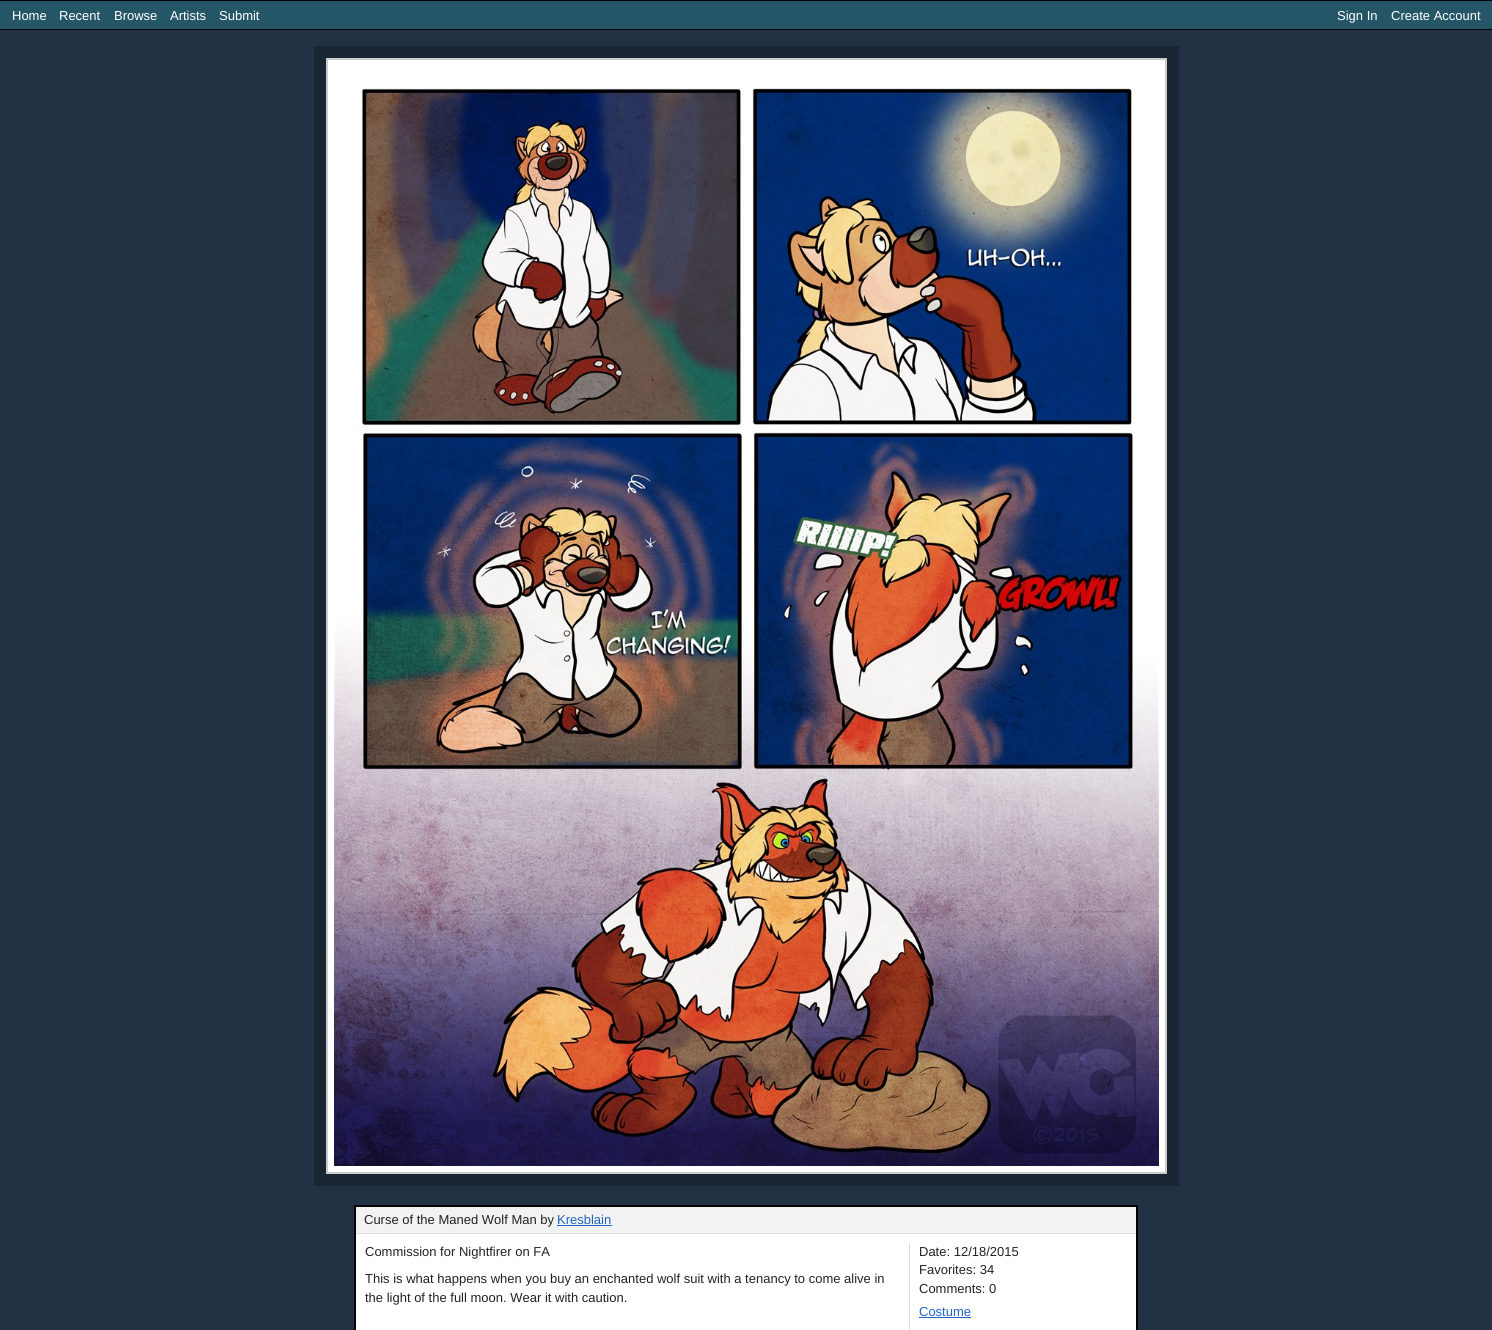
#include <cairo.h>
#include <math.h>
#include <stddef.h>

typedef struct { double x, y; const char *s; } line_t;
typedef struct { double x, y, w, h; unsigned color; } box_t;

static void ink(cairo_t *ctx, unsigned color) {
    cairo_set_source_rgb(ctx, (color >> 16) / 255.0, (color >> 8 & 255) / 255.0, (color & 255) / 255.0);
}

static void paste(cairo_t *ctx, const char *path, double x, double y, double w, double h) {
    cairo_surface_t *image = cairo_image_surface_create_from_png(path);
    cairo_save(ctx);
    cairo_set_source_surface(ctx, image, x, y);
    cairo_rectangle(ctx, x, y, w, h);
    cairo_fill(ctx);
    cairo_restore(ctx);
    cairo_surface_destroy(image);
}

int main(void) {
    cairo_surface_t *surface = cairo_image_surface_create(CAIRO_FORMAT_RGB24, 1492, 1330);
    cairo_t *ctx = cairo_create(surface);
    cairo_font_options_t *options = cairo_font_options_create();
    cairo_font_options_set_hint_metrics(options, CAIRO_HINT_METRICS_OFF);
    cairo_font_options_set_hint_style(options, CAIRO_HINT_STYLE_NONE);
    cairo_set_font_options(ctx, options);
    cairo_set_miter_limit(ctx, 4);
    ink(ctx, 0x223244);
    cairo_paint(ctx);
    {
        static const box_t items[] = {
            {0, 1, 1492, 28, 0x255668},
            {0, 0, 1492, 1, 0x000000},
            {0, 29, 1492, 1, 0x000000},
        };
        for (size_t i = 0; i < sizeof items / sizeof *items; i++) {
            ink(ctx, items[i].color);
            cairo_rectangle(ctx, items[i].x, items[i].y, items[i].w, items[i].h);
            cairo_fill(ctx);
        }
    }
    cairo_select_font_face(ctx, "Liberation Sans", CAIRO_FONT_SLANT_NORMAL, CAIRO_FONT_WEIGHT_NORMAL);
    cairo_set_font_size(ctx, 13);
    ink(ctx, 0xFFFFFF);
    {
        static const line_t items[] = {
            {12, 20, "Home"},
            {59, 20, "Recent"},
            {114, 20, "Browse"},
            {170, 20, "Artists"},
            {219, 20, "Submit"},
            {1337, 20, "Sign In"},
            {1391, 20, "Create Account"},
        };
        for (size_t i = 0; i < sizeof items / sizeof *items; i++) {
            cairo_move_to(ctx, items[i].x, items[i].y);
            cairo_show_text(ctx, items[i].s);
        }
    }
    ink(ctx, 0x1A2533);
    cairo_rectangle(ctx, 314, 46, 865, 1140);
    cairo_fill(ctx);
    ink(ctx, 0xFFFFFF);
    cairo_rectangle(ctx, 327, 59, 839, 1114);
    cairo_fill_preserve(ctx);
    ink(ctx, 0xCCCCCC);
    cairo_stroke(ctx);
    paste(ctx, "media/1.png", 334, 88, 825, 1078);
    ink(ctx, 0xFFFFFF);
    cairo_rectangle(ctx, 356, 1234, 780, 96);
    cairo_fill(ctx);
    cairo_rectangle(ctx, 355, 1206, 782, 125);
    ink(ctx, 0x000000);
    cairo_stroke(ctx);
    ink(ctx, 0xF2F2F2);
    cairo_rectangle(ctx, 356, 1207, 780, 26);
    cairo_fill(ctx);
    ink(ctx, 0xDDDDDD);
    cairo_rectangle(ctx, 356, 1233, 780, 1);
    cairo_fill(ctx);
    ink(ctx, 0x222222);
    cairo_move_to(ctx, 364, 1224);
    cairo_show_text(ctx, "Curse of the Maned Wolf Man by");
    ink(ctx, 0x2263C3);
    cairo_move_to(ctx, 557, 1224);
    cairo_show_text(ctx, "Kresblain");
    cairo_rectangle(ctx, 557, 1225, 55, 1);
    cairo_fill(ctx);
    ink(ctx, 0x222222);
    {
        static const line_t items[] = {
            {365, 1256, "Commission for Nightfirer on FA"},
            {365, 1283, "This is what happens when you buy an enchanted wolf suit with a tenancy to come alive in"},
            {365, 1302, "the light of the full moon. Wear it with caution."},
        };
        for (size_t i = 0; i < sizeof items / sizeof *items; i++) {
            cairo_move_to(ctx, items[i].x, items[i].y);
            cairo_show_text(ctx, items[i].s);
        }
    }
    ink(ctx, 0xDDDDDD);
    cairo_rectangle(ctx, 909, 1243, 1, 87);
    cairo_fill(ctx);
    ink(ctx, 0x222222);
    {
        static const line_t items[] = {
            {919, 1256, "Date: 12/18/2015"},
            {919, 1274, "Favorites: 34"},
            {919, 1293, "Comments: 0"},
        };
        for (size_t i = 0; i < sizeof items / sizeof *items; i++) {
            cairo_move_to(ctx, items[i].x, items[i].y);
            cairo_show_text(ctx, items[i].s);
        }
    }
    ink(ctx, 0x2263C3);
    cairo_move_to(ctx, 919, 1316);
    cairo_show_text(ctx, "Costume");
    cairo_rectangle(ctx, 919, 1317, 52, 1);
    cairo_fill(ctx);
    cairo_surface_write_to_png(surface, "image.png");
    cairo_font_options_destroy(options);
    cairo_destroy(ctx);
    cairo_surface_destroy(surface);
    return 0;
}
